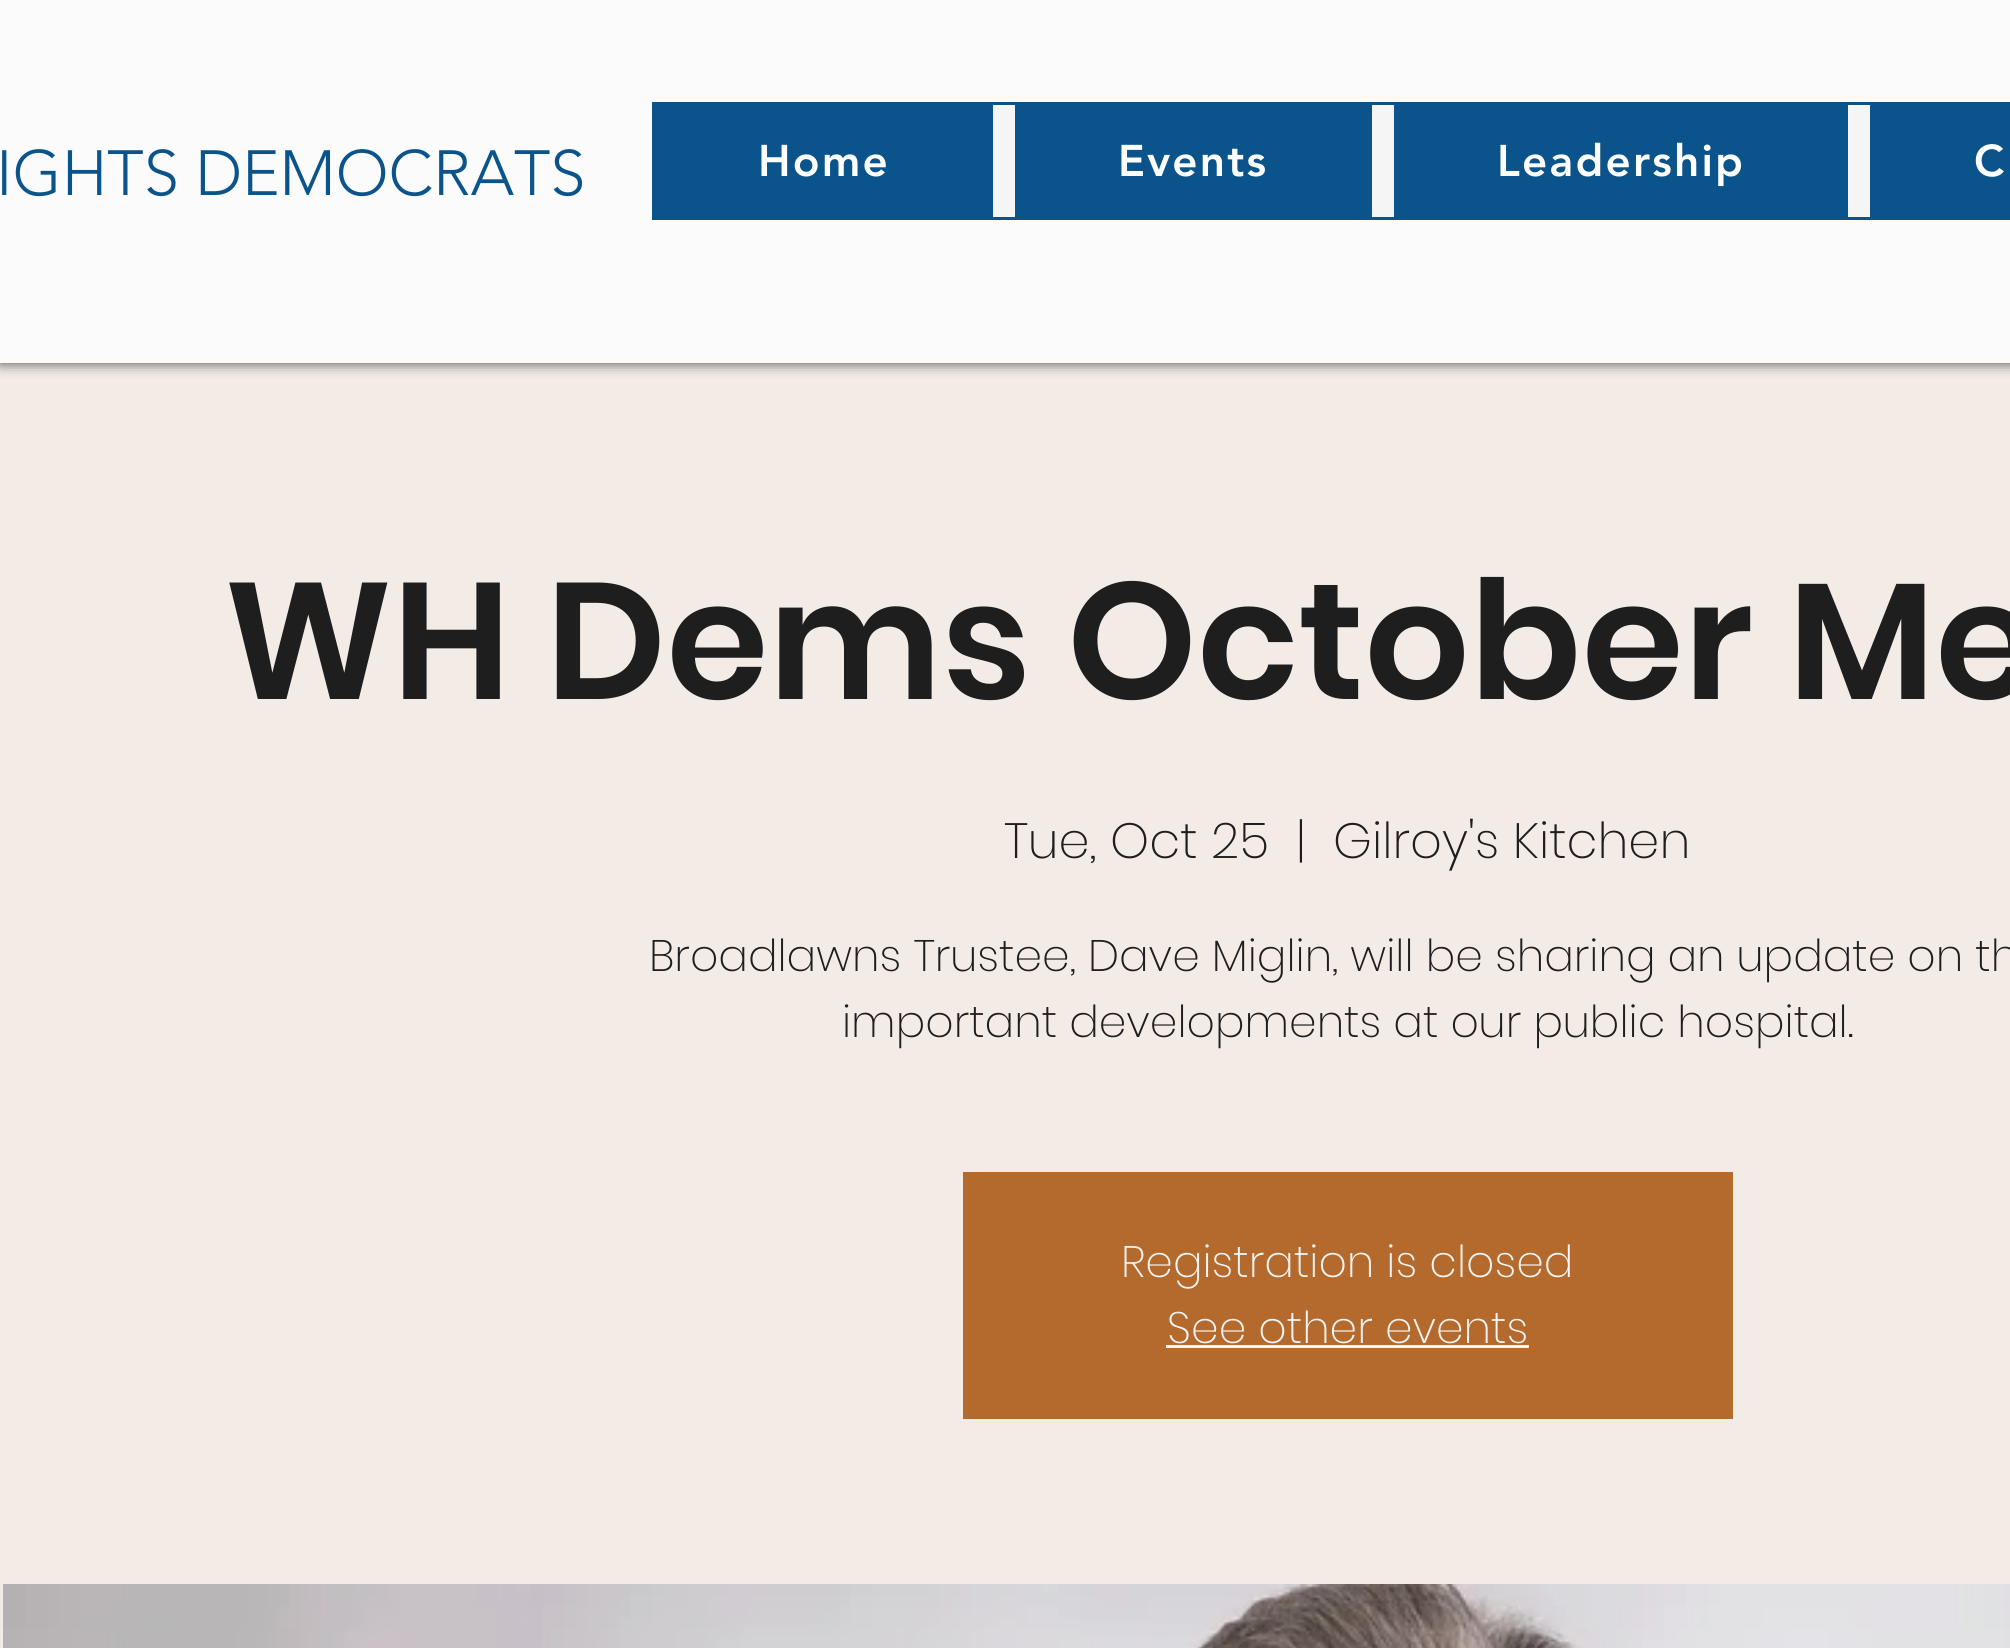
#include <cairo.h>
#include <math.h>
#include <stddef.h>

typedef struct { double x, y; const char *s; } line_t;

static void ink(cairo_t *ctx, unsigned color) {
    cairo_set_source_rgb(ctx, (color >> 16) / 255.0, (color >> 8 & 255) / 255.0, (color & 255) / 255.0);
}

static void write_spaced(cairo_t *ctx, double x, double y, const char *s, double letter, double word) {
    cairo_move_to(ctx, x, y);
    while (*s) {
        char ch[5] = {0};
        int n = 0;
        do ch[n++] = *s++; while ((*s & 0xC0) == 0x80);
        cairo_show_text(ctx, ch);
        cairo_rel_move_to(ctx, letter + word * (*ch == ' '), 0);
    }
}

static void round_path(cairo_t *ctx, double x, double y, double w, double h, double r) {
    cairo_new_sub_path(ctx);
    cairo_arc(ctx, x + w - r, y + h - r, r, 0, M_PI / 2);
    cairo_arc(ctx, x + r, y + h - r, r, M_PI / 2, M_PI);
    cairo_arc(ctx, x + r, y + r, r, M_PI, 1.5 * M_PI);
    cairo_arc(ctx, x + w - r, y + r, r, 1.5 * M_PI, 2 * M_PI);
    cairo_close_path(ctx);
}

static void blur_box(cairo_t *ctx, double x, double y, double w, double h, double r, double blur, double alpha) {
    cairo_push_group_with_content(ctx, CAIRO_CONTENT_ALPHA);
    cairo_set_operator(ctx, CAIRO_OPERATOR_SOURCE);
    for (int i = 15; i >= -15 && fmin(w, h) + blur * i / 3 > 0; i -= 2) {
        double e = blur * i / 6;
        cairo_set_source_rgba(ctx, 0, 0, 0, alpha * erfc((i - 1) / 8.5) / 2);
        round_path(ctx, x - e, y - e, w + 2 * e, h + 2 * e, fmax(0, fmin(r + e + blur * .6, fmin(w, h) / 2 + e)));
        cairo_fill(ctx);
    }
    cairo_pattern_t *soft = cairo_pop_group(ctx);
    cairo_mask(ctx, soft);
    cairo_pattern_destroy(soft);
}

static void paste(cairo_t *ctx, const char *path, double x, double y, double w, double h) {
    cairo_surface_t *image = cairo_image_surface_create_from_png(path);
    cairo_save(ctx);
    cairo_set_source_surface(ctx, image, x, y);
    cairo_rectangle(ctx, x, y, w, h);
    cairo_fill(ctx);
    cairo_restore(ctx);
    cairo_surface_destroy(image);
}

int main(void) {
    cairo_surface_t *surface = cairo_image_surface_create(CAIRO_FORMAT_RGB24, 2010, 1648);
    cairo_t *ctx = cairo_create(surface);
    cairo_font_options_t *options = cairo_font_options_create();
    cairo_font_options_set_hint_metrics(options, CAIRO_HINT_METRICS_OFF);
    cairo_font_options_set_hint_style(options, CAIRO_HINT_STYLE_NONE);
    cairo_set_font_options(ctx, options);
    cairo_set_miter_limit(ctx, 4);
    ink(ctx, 0xF3ECE6);
    cairo_paint(ctx);
    ink(ctx, 0x000000);
    blur_box(ctx, 0, 0, 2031, 363, 0, 7, 0.7);
    ink(ctx, 0xFBFBFB);
    cairo_rectangle(ctx, 0, 0, 2010, 363);
    cairo_fill(ctx);
    cairo_select_font_face(ctx, "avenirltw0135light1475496 Light", CAIRO_FONT_SLANT_NORMAL, CAIRO_FONT_WEIGHT_NORMAL);
    cairo_set_font_size(ctx, 63.25);
    ink(ctx, 0x0B548B);
    cairo_move_to(ctx, -4, 195);
    cairo_show_text(ctx, "IGHTS DEMOCRATS");
    ink(ctx, 0xF5F5F5);
    cairo_rectangle(ctx, 993, 105, 877, 112);
    cairo_fill(ctx);
    cairo_rectangle(ctx, 653.5, 103.5, 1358, 115);
    ink(ctx, 0x0B548B);
    cairo_set_line_width(ctx, 3);
    cairo_stroke(ctx);
    cairo_rectangle(ctx, 655, 105, 338, 112);
    cairo_fill(ctx);
    cairo_select_font_face(ctx, "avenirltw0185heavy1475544 Black", CAIRO_FONT_SLANT_NORMAL, CAIRO_FONT_WEIGHT_NORMAL);
    cairo_set_font_size(ctx, 44);
    ink(ctx, 0xFFFFFF);
    write_spaced(ctx, 758, 176, "Home", 2.25, 0);
    ink(ctx, 0x0B548B);
    cairo_rectangle(ctx, 1015, 105, 357, 112);
    cairo_fill(ctx);
    ink(ctx, 0xFFFFFF);
    write_spaced(ctx, 1118, 176, "Events", 2.25, 0);
    ink(ctx, 0x0B548B);
    cairo_rectangle(ctx, 1394, 105, 454, 112);
    cairo_fill(ctx);
    ink(ctx, 0xFFFFFF);
    write_spaced(ctx, 1497, 176, "Leadership", 2.25, 0);
    ink(ctx, 0x0B548B);
    cairo_rectangle(ctx, 1870, 105, 140, 112);
    cairo_fill(ctx);
    ink(ctx, 0xFFFFFF);
    write_spaced(ctx, 1974, 176, "C", 2.25, 0);
    cairo_select_font_face(ctx, "Poppins SemiBold", CAIRO_FONT_SLANT_NORMAL, CAIRO_FONT_WEIGHT_NORMAL);
    cairo_set_font_size(ctx, 165);
    ink(ctx, 0x1E1E1E);
    cairo_move_to(ctx, 224, 699);
    cairo_show_text(ctx, "WH Dems October Me");
    cairo_select_font_face(ctx, "Poppins ExtraLight", CAIRO_FONT_SLANT_NORMAL, CAIRO_FONT_WEIGHT_NORMAL);
    cairo_set_font_size(ctx, 49.5);
    {
        static const line_t items[] = {
            {1004, 858, "Tue, Oct 25"},
            {1296, 858, "|"},
            {1333, 858, "Gilroy's Kitchen"},
        };
        for (size_t i = 0; i < sizeof items / sizeof *items; i++) {
            cairo_move_to(ctx, items[i].x, items[i].y);
            cairo_show_text(ctx, items[i].s);
        }
    }
    cairo_set_font_size(ctx, 44);
    cairo_move_to(ctx, 649, 971);
    cairo_show_text(ctx, "Broadlawns Trustee, Dave Miglin, will be sharing an update on th");
    cairo_move_to(ctx, 842, 1037);
    cairo_show_text(ctx, "important developments at our public hospital.");
    ink(ctx, 0xB46A2C);
    cairo_rectangle(ctx, 963, 1172, 770, 247);
    cairo_fill(ctx);
    ink(ctx, 0xF5F5F5);
    cairo_move_to(ctx, 1121, 1277);
    cairo_show_text(ctx, "Registration is closed");
    cairo_move_to(ctx, 1167, 1343);
    cairo_show_text(ctx, "See other events");
    cairo_rectangle(ctx, 1166, 1345, 363, 3);
    cairo_fill(ctx);
    paste(ctx, "media/1.png", 3, 1584, 2007, 64);
    cairo_surface_write_to_png(surface, "image.png");
    cairo_font_options_destroy(options);
    cairo_destroy(ctx);
    cairo_surface_destroy(surface);
    return 0;
}
